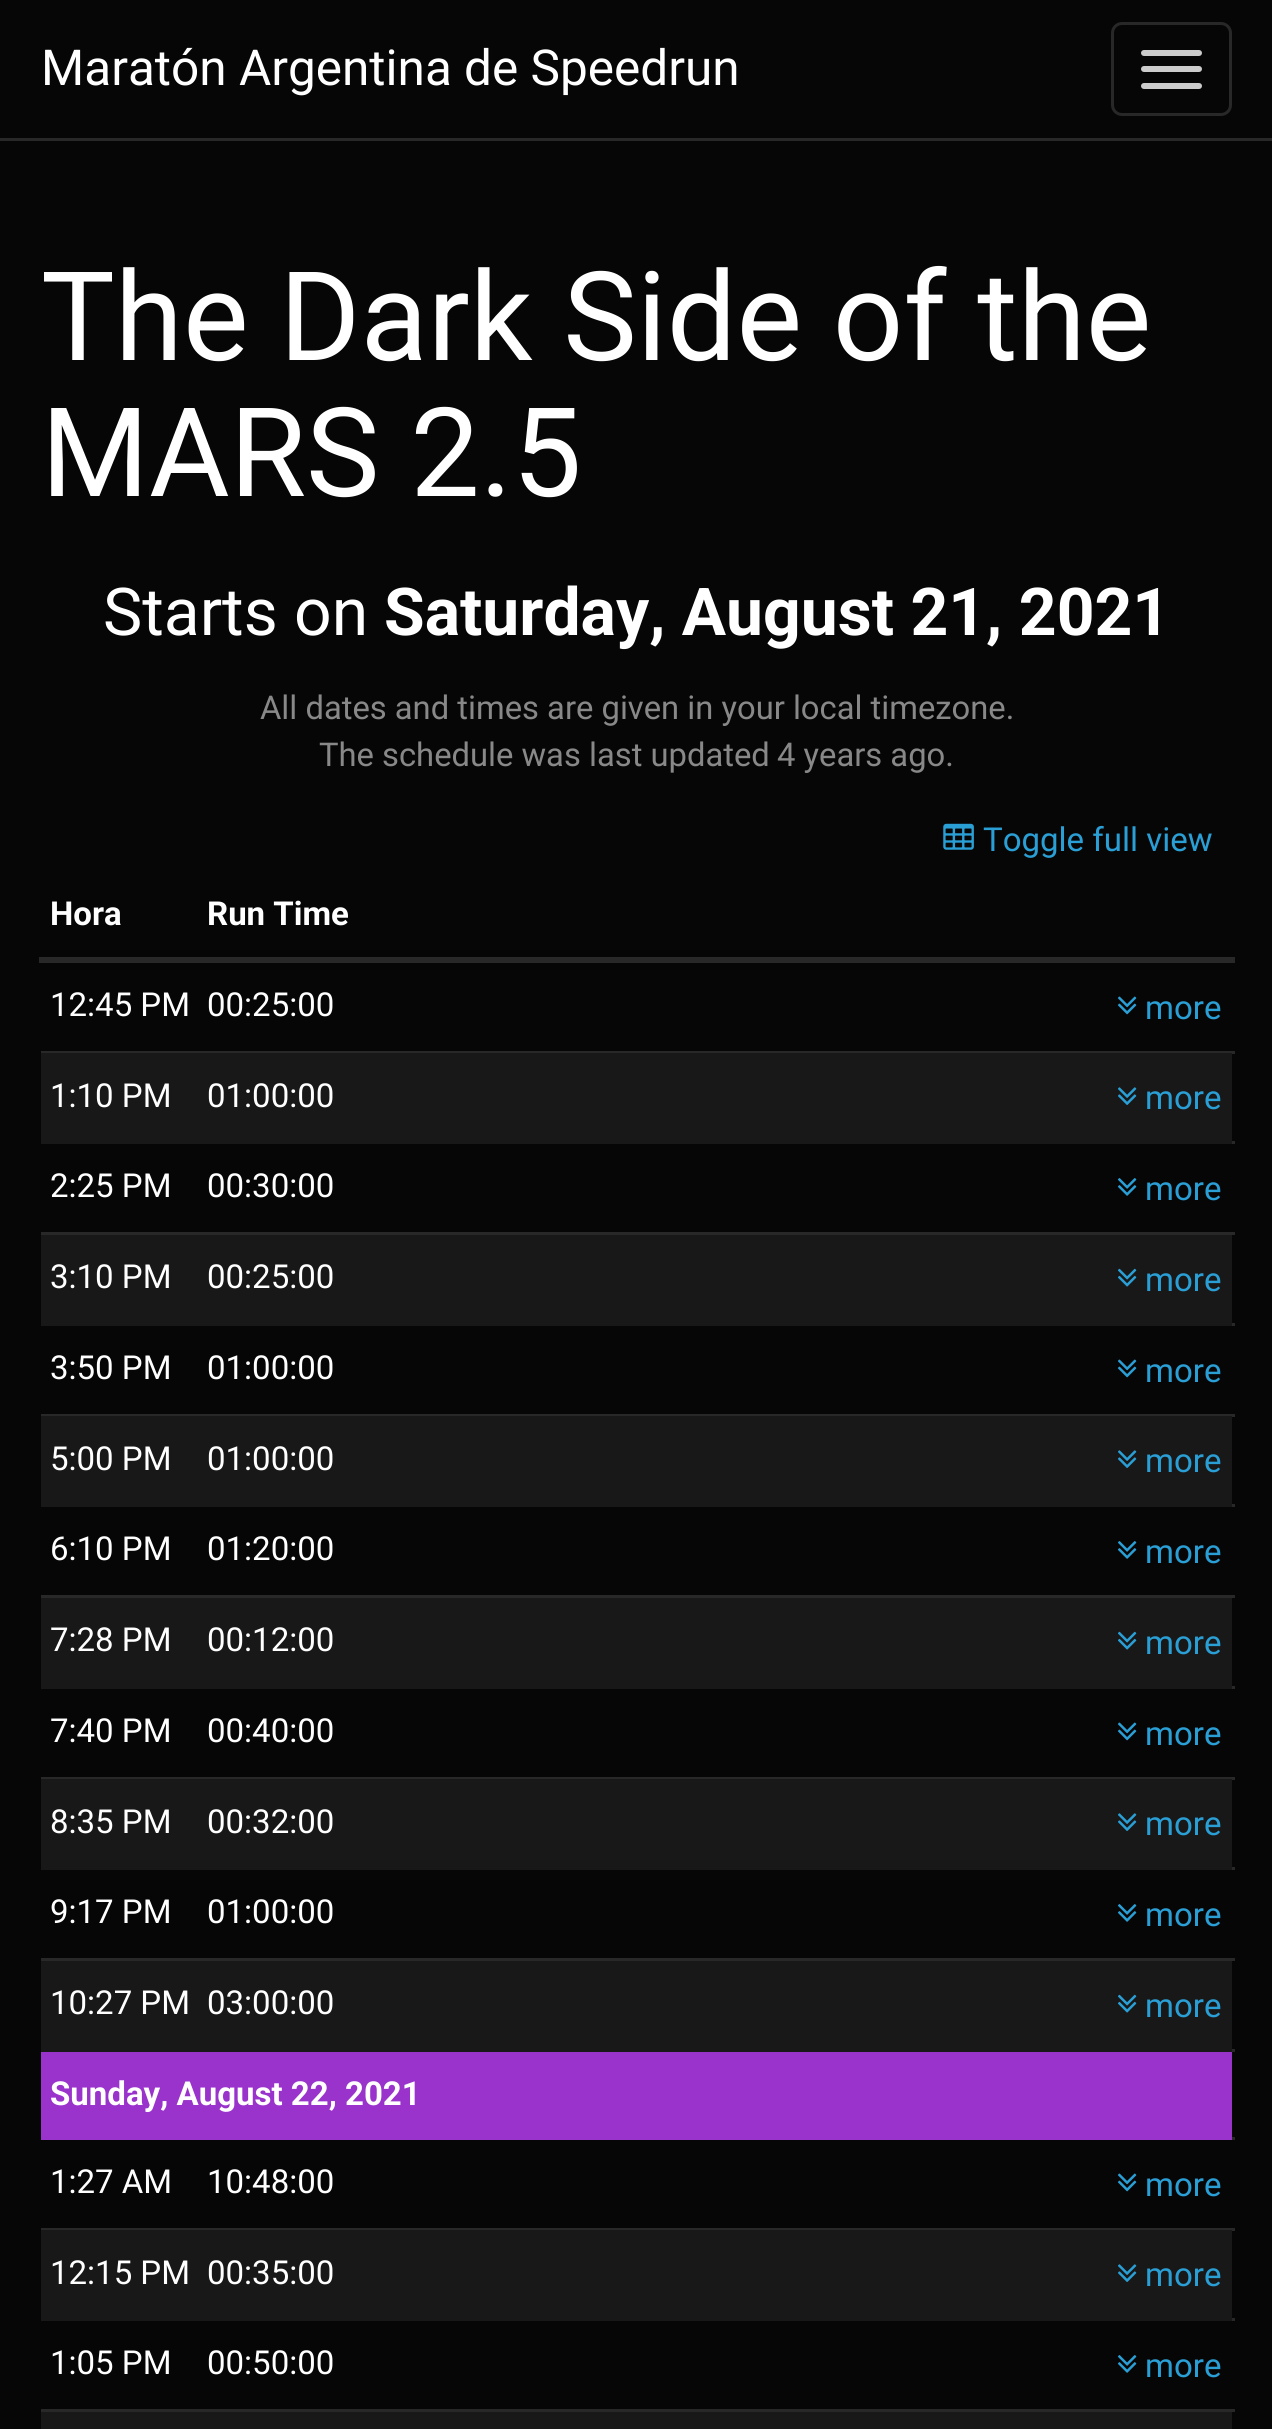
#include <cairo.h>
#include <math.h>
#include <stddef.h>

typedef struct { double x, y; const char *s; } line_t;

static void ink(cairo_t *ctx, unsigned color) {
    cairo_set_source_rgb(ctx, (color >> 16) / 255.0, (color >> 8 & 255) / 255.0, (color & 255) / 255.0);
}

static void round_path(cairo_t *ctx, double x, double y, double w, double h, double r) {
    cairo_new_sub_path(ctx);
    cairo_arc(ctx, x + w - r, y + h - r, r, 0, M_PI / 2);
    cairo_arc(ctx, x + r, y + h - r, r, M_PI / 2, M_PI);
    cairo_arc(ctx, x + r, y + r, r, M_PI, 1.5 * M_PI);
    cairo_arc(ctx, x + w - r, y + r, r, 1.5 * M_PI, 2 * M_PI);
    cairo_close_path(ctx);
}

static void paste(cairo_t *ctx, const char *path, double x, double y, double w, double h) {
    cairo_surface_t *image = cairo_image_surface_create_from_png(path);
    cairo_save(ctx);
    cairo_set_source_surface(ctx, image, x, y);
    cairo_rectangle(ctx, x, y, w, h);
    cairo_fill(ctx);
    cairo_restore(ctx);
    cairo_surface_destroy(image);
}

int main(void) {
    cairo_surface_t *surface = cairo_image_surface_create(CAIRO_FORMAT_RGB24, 1272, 2429);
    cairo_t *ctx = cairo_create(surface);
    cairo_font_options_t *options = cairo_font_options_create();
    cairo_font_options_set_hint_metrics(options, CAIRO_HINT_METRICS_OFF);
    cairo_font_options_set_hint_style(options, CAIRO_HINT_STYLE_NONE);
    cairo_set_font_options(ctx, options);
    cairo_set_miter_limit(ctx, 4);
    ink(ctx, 0x060606);
    cairo_paint(ctx);
    ink(ctx, 0x282828);
    cairo_rectangle(ctx, 0, 138, 1272, 3);
    cairo_fill(ctx);
    cairo_select_font_face(ctx, "Roboto", CAIRO_FONT_SLANT_NORMAL, CAIRO_FONT_WEIGHT_NORMAL);
    cairo_set_font_size(ctx, 49.5);
    ink(ctx, 0xFFFFFF);
    cairo_move_to(ctx, 41, 85);
    cairo_show_text(ctx, "Maratón Argentina de Speedrun");
    round_path(ctx, 1112.5, 23.5, 118, 91, 9.5);
    ink(ctx, 0x282828);
    cairo_set_line_width(ctx, 3);
    cairo_stroke(ctx);
    ink(ctx, 0xCCCCCC);
    round_path(ctx, 1141, 50, 61, 6, 3);
    cairo_fill(ctx);
    round_path(ctx, 1141, 66, 61, 6, 3);
    cairo_fill(ctx);
    round_path(ctx, 1141, 83, 61, 6, 3);
    cairo_fill(ctx);
    cairo_set_font_size(ctx, 123.75);
    ink(ctx, 0xFFFFFF);
    cairo_move_to(ctx, 41, 360);
    cairo_show_text(ctx, "The Dark Side of the");
    cairo_move_to(ctx, 41, 496);
    cairo_show_text(ctx, "MARS 2.5");
    cairo_set_font_size(ctx, 66);
    cairo_move_to(ctx, 103, 635);
    cairo_show_text(ctx, "Starts on");
    cairo_select_font_face(ctx, "Roboto", CAIRO_FONT_SLANT_NORMAL, CAIRO_FONT_WEIGHT_BOLD);
    cairo_move_to(ctx, 384, 635);
    cairo_show_text(ctx, "Saturday, August 21, 2021");
    cairo_select_font_face(ctx, "Roboto", CAIRO_FONT_SLANT_NORMAL, CAIRO_FONT_WEIGHT_NORMAL);
    cairo_set_font_size(ctx, 32.75);
    ink(ctx, 0x888888);
    {
        static const line_t items[] = {
            {260, 719, "All dates and times are given in your local timezone."},
            {319, 766, "The schedule was last updated"},
            {777, 766, "4 years ago."},
        };
        for (size_t i = 0; i < sizeof items / sizeof *items; i++) {
            cairo_move_to(ctx, items[i].x, items[i].y);
            cairo_show_text(ctx, items[i].s);
        }
    }
    paste(ctx, "media/1.png", 943, 823, 31, 27);
    cairo_set_font_size(ctx, 33);
    ink(ctx, 0x2A9FD6);
    cairo_move_to(ctx, 983, 851);
    cairo_show_text(ctx, "Toggle full view");
    cairo_select_font_face(ctx, "Roboto", CAIRO_FONT_SLANT_NORMAL, CAIRO_FONT_WEIGHT_BOLD);
    ink(ctx, 0xFFFFFF);
    cairo_move_to(ctx, 50, 925);
    cairo_show_text(ctx, "Hora");
    cairo_move_to(ctx, 207, 925);
    cairo_show_text(ctx, "Run Time");
    ink(ctx, 0x282828);
    cairo_rectangle(ctx, 39, 957, 1196, 6);
    cairo_fill(ctx);
    cairo_select_font_face(ctx, "Roboto", CAIRO_FONT_SLANT_NORMAL, CAIRO_FONT_WEIGHT_NORMAL);
    ink(ctx, 0xFFFFFF);
    cairo_move_to(ctx, 50, 1016);
    cairo_show_text(ctx, "12:45 PM");
    cairo_move_to(ctx, 207, 1016);
    cairo_show_text(ctx, "00:25:00");
    paste(ctx, "media/2.png", 1118, 996, 19, 19);
    ink(ctx, 0x2A9FD6);
    cairo_move_to(ctx, 1145, 1019);
    cairo_show_text(ctx, "more");
    ink(ctx, 0x282828);
    cairo_rectangle(ctx, 41, 1051, 1194, 3);
    cairo_fill(ctx);
    ink(ctx, 0x181818);
    cairo_rectangle(ctx, 41, 1053, 1191, 91);
    cairo_fill(ctx);
    ink(ctx, 0xFFFFFF);
    cairo_move_to(ctx, 50, 1107);
    cairo_show_text(ctx, "1:10 PM");
    cairo_move_to(ctx, 207, 1107);
    cairo_show_text(ctx, "01:00:00");
    paste(ctx, "media/3.png", 1118, 1087, 19, 18);
    ink(ctx, 0x2A9FD6);
    cairo_move_to(ctx, 1145, 1109);
    cairo_show_text(ctx, "more");
    ink(ctx, 0x282828);
    cairo_rectangle(ctx, 1232, 1141, 3, 3);
    cairo_fill(ctx);
    ink(ctx, 0xFFFFFF);
    cairo_move_to(ctx, 50, 1197);
    cairo_show_text(ctx, "2:25 PM");
    cairo_move_to(ctx, 207, 1197);
    cairo_show_text(ctx, "00:30:00");
    paste(ctx, "media/4.png", 1118, 1178, 19, 18);
    ink(ctx, 0x2A9FD6);
    cairo_move_to(ctx, 1145, 1200);
    cairo_show_text(ctx, "more");
    ink(ctx, 0x282828);
    cairo_rectangle(ctx, 41, 1232, 1194, 3);
    cairo_fill(ctx);
    ink(ctx, 0x181818);
    cairo_rectangle(ctx, 41, 1235, 1191, 91);
    cairo_fill(ctx);
    ink(ctx, 0xFFFFFF);
    cairo_move_to(ctx, 50, 1288);
    cairo_show_text(ctx, "3:10 PM");
    cairo_move_to(ctx, 207, 1288);
    cairo_show_text(ctx, "00:25:00");
    paste(ctx, "media/5.png", 1118, 1268, 19, 19);
    ink(ctx, 0x2A9FD6);
    cairo_move_to(ctx, 1145, 1291);
    cairo_show_text(ctx, "more");
    ink(ctx, 0x282828);
    cairo_rectangle(ctx, 1232, 1323, 3, 3);
    cairo_fill(ctx);
    ink(ctx, 0xFFFFFF);
    cairo_move_to(ctx, 50, 1379);
    cairo_show_text(ctx, "3:50 PM");
    cairo_move_to(ctx, 207, 1379);
    cairo_show_text(ctx, "01:00:00");
    paste(ctx, "media/2.png", 1118, 1359, 19, 19);
    ink(ctx, 0x2A9FD6);
    cairo_move_to(ctx, 1145, 1382);
    cairo_show_text(ctx, "more");
    ink(ctx, 0x282828);
    cairo_rectangle(ctx, 41, 1414, 1194, 3);
    cairo_fill(ctx);
    ink(ctx, 0x181818);
    cairo_rectangle(ctx, 41, 1416, 1191, 91);
    cairo_fill(ctx);
    ink(ctx, 0xFFFFFF);
    cairo_move_to(ctx, 50, 1470);
    cairo_show_text(ctx, "5:00 PM");
    cairo_move_to(ctx, 207, 1470);
    cairo_show_text(ctx, "01:00:00");
    paste(ctx, "media/3.png", 1118, 1450, 19, 18);
    ink(ctx, 0x2A9FD6);
    cairo_move_to(ctx, 1145, 1472);
    cairo_show_text(ctx, "more");
    ink(ctx, 0x282828);
    cairo_rectangle(ctx, 1232, 1504, 3, 3);
    cairo_fill(ctx);
    ink(ctx, 0xFFFFFF);
    cairo_move_to(ctx, 50, 1560);
    cairo_show_text(ctx, "6:10 PM");
    cairo_move_to(ctx, 207, 1560);
    cairo_show_text(ctx, "01:20:00");
    paste(ctx, "media/4.png", 1118, 1541, 19, 18);
    ink(ctx, 0x2A9FD6);
    cairo_move_to(ctx, 1145, 1563);
    cairo_show_text(ctx, "more");
    ink(ctx, 0x282828);
    cairo_rectangle(ctx, 41, 1595, 1194, 3);
    cairo_fill(ctx);
    ink(ctx, 0x181818);
    cairo_rectangle(ctx, 41, 1598, 1191, 91);
    cairo_fill(ctx);
    ink(ctx, 0xFFFFFF);
    cairo_move_to(ctx, 50, 1651);
    cairo_show_text(ctx, "7:28 PM");
    cairo_move_to(ctx, 207, 1651);
    cairo_show_text(ctx, "00:12:00");
    paste(ctx, "media/5.png", 1118, 1631, 19, 19);
    ink(ctx, 0x2A9FD6);
    cairo_move_to(ctx, 1145, 1654);
    cairo_show_text(ctx, "more");
    ink(ctx, 0x282828);
    cairo_rectangle(ctx, 1232, 1686, 3, 3);
    cairo_fill(ctx);
    ink(ctx, 0xFFFFFF);
    cairo_move_to(ctx, 50, 1742);
    cairo_show_text(ctx, "7:40 PM");
    cairo_move_to(ctx, 207, 1742);
    cairo_show_text(ctx, "00:40:00");
    paste(ctx, "media/2.png", 1118, 1722, 19, 19);
    ink(ctx, 0x2A9FD6);
    cairo_move_to(ctx, 1145, 1745);
    cairo_show_text(ctx, "more");
    ink(ctx, 0x282828);
    cairo_rectangle(ctx, 41, 1777, 1194, 3);
    cairo_fill(ctx);
    ink(ctx, 0x181818);
    cairo_rectangle(ctx, 41, 1779, 1191, 91);
    cairo_fill(ctx);
    ink(ctx, 0xFFFFFF);
    cairo_move_to(ctx, 50, 1833);
    cairo_show_text(ctx, "8:35 PM");
    cairo_move_to(ctx, 207, 1833);
    cairo_show_text(ctx, "00:32:00");
    paste(ctx, "media/3.png", 1118, 1813, 19, 18);
    ink(ctx, 0x2A9FD6);
    cairo_move_to(ctx, 1145, 1835);
    cairo_show_text(ctx, "more");
    ink(ctx, 0x282828);
    cairo_rectangle(ctx, 1232, 1867, 3, 3);
    cairo_fill(ctx);
    ink(ctx, 0xFFFFFF);
    cairo_move_to(ctx, 50, 1923);
    cairo_show_text(ctx, "9:17 PM");
    cairo_move_to(ctx, 207, 1923);
    cairo_show_text(ctx, "01:00:00");
    paste(ctx, "media/4.png", 1118, 1904, 19, 18);
    ink(ctx, 0x2A9FD6);
    cairo_move_to(ctx, 1145, 1926);
    cairo_show_text(ctx, "more");
    ink(ctx, 0x282828);
    cairo_rectangle(ctx, 41, 1958, 1194, 3);
    cairo_fill(ctx);
    ink(ctx, 0x181818);
    cairo_rectangle(ctx, 41, 1961, 1191, 91);
    cairo_fill(ctx);
    ink(ctx, 0xFFFFFF);
    cairo_move_to(ctx, 50, 2014);
    cairo_show_text(ctx, "10:27 PM");
    cairo_move_to(ctx, 207, 2014);
    cairo_show_text(ctx, "03:00:00");
    paste(ctx, "media/5.png", 1118, 1994, 19, 19);
    ink(ctx, 0x2A9FD6);
    cairo_move_to(ctx, 1145, 2017);
    cairo_show_text(ctx, "more");
    ink(ctx, 0x282828);
    cairo_rectangle(ctx, 1232, 2049, 3, 3);
    cairo_fill(ctx);
    ink(ctx, 0x9933CC);
    cairo_rectangle(ctx, 41, 2052, 1191, 88);
    cairo_fill(ctx);
    cairo_select_font_face(ctx, "Roboto", CAIRO_FONT_SLANT_NORMAL, CAIRO_FONT_WEIGHT_BOLD);
    ink(ctx, 0xFFFFFF);
    cairo_move_to(ctx, 50, 2105);
    cairo_show_text(ctx, "Sunday, August 22, 2021");
    cairo_select_font_face(ctx, "Roboto", CAIRO_FONT_SLANT_NORMAL, CAIRO_FONT_WEIGHT_NORMAL);
    cairo_move_to(ctx, 50, 2193);
    cairo_show_text(ctx, "1:27 AM");
    cairo_move_to(ctx, 207, 2193);
    cairo_show_text(ctx, "10:48:00");
    ink(ctx, 0x282828);
    cairo_rectangle(ctx, 1232, 2137, 3, 3);
    cairo_fill(ctx);
    paste(ctx, "media/2.png", 1118, 2173, 19, 19);
    ink(ctx, 0x2A9FD6);
    cairo_move_to(ctx, 1145, 2196);
    cairo_show_text(ctx, "more");
    ink(ctx, 0x282828);
    cairo_rectangle(ctx, 41, 2228, 1194, 3);
    cairo_fill(ctx);
    ink(ctx, 0x181818);
    cairo_rectangle(ctx, 41, 2230, 1191, 91);
    cairo_fill(ctx);
    ink(ctx, 0xFFFFFF);
    cairo_move_to(ctx, 50, 2284);
    cairo_show_text(ctx, "12:15 PM");
    cairo_move_to(ctx, 207, 2284);
    cairo_show_text(ctx, "00:35:00");
    paste(ctx, "media/3.png", 1118, 2264, 19, 18);
    ink(ctx, 0x2A9FD6);
    cairo_move_to(ctx, 1145, 2286);
    cairo_show_text(ctx, "more");
    ink(ctx, 0x282828);
    cairo_rectangle(ctx, 1232, 2318, 3, 3);
    cairo_fill(ctx);
    ink(ctx, 0xFFFFFF);
    cairo_move_to(ctx, 50, 2374);
    cairo_show_text(ctx, "1:05 PM");
    cairo_move_to(ctx, 207, 2374);
    cairo_show_text(ctx, "00:50:00");
    paste(ctx, "media/4.png", 1118, 2355, 19, 18);
    ink(ctx, 0x2A9FD6);
    cairo_move_to(ctx, 1145, 2377);
    cairo_show_text(ctx, "more");
    ink(ctx, 0x282828);
    cairo_rectangle(ctx, 41, 2409, 1194, 3);
    cairo_fill(ctx);
    ink(ctx, 0x181818);
    cairo_rectangle(ctx, 41, 2412, 1191, 17);
    cairo_fill(ctx);
    cairo_surface_write_to_png(surface, "image.png");
    cairo_font_options_destroy(options);
    cairo_destroy(ctx);
    cairo_surface_destroy(surface);
    return 0;
}
